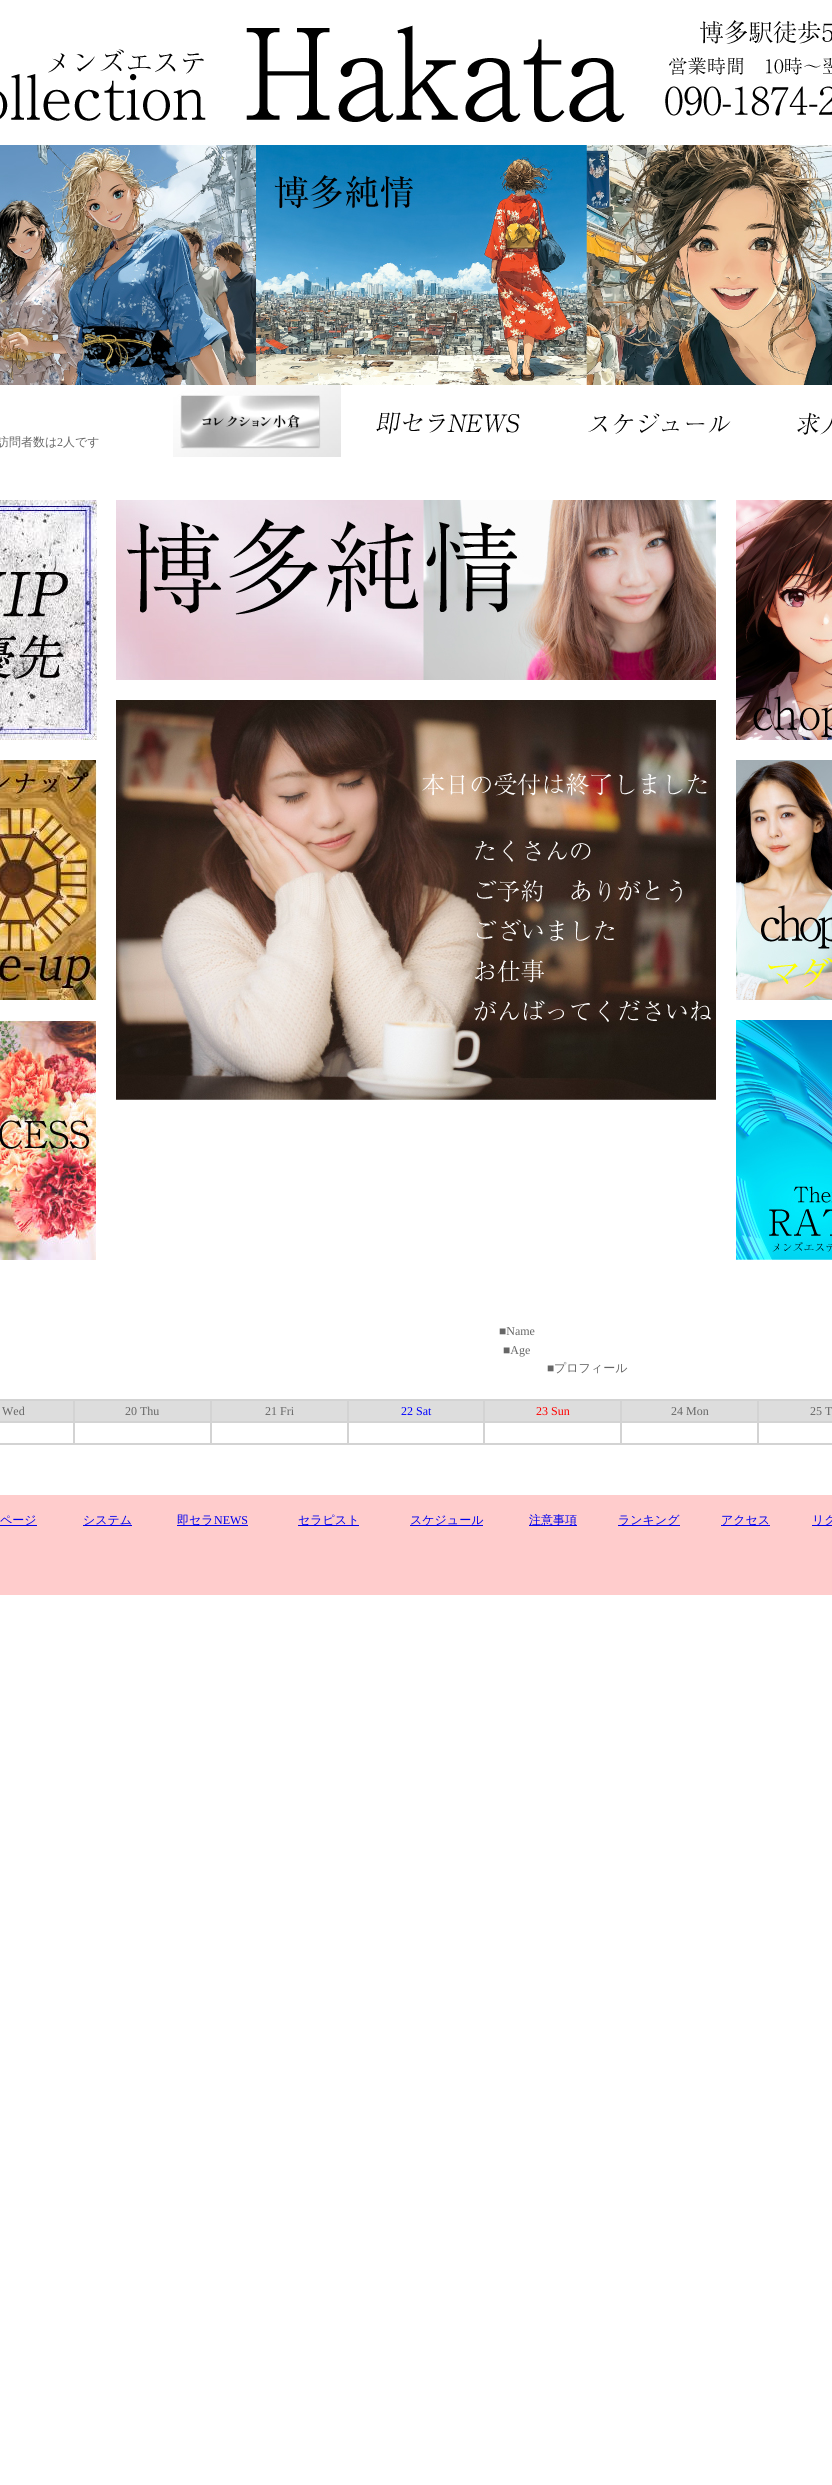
#include <cairo.h>
#include <math.h>
#include <stddef.h>

typedef struct { double x, y; const char *s; } line_t;

static void ink(cairo_t *ctx, unsigned color) {
    cairo_set_source_rgb(ctx, (color >> 16) / 255.0, (color >> 8 & 255) / 255.0, (color & 255) / 255.0);
}

static void paste(cairo_t *ctx, const char *path, double x, double y, double w, double h) {
    cairo_surface_t *image = cairo_image_surface_create_from_png(path);
    cairo_save(ctx);
    cairo_set_source_surface(ctx, image, x, y);
    cairo_rectangle(ctx, x, y, w, h);
    cairo_fill(ctx);
    cairo_restore(ctx);
    cairo_surface_destroy(image);
}

int main(void) {
    cairo_surface_t *surface = cairo_image_surface_create(CAIRO_FORMAT_RGB24, 832, 2485);
    cairo_t *ctx = cairo_create(surface);
    cairo_font_options_t *options = cairo_font_options_create();
    cairo_font_options_set_hint_metrics(options, CAIRO_HINT_METRICS_OFF);
    cairo_font_options_set_hint_style(options, CAIRO_HINT_STYLE_NONE);
    cairo_set_font_options(ctx, options);
    cairo_set_miter_limit(ctx, 4);
    ink(ctx, 0xFFFFFF);
    cairo_paint(ctx);
    paste(ctx, "media/1.png", 0, 20, 832, 102);
    paste(ctx, "media/2.png", 0, 145, 832, 240);
    paste(ctx, "media/3.png", 173, 385, 168, 72);
    paste(ctx, "media/4.png", 376, 412, 144, 22);
    paste(ctx, "media/5.png", 588, 413, 143, 21);
    paste(ctx, "media/6.png", 797, 412, 35, 23);
    cairo_select_font_face(ctx, "WenQuanYi Zen Hei Medium", CAIRO_FONT_SLANT_NORMAL, CAIRO_FONT_WEIGHT_NORMAL);
    cairo_set_font_size(ctx, 12);
    ink(ctx, 0x666666);
    cairo_move_to(ctx, -3, 446);
    cairo_show_text(ctx, "訪問者数は");
    cairo_select_font_face(ctx, "Liberation Serif", CAIRO_FONT_SLANT_NORMAL, CAIRO_FONT_WEIGHT_NORMAL);
    cairo_move_to(ctx, 57, 446);
    cairo_show_text(ctx, "2");
    cairo_select_font_face(ctx, "WenQuanYi Zen Hei Medium", CAIRO_FONT_SLANT_NORMAL, CAIRO_FONT_WEIGHT_NORMAL);
    cairo_move_to(ctx, 63, 446);
    cairo_show_text(ctx, "人です");
    paste(ctx, "media/7.png", 0, 500, 97, 240);
    paste(ctx, "media/8.png", 0, 760, 97, 240);
    paste(ctx, "media/9.png", 0, 1020, 96, 240);
    paste(ctx, "media/10.png", 116, 500, 600, 180);
    paste(ctx, "media/11.png", 116, 700, 600, 400);
    paste(ctx, "media/12.png", 736, 500, 96, 240);
    paste(ctx, "media/13.png", 736, 760, 96, 240);
    paste(ctx, "media/14.png", 736, 1020, 96, 240);
    cairo_select_font_face(ctx, "Liberation Serif", CAIRO_FONT_SLANT_NORMAL, CAIRO_FONT_WEIGHT_NORMAL);
    {
        static const line_t items[] = {
            {499, 1335, "■Name"},
            {503, 1354, "■Age"},
            {547, 1372, "■"},
        };
        for (size_t i = 0; i < sizeof items / sizeof *items; i++) {
            cairo_move_to(ctx, items[i].x, items[i].y);
            cairo_show_text(ctx, items[i].s);
        }
    }
    cairo_select_font_face(ctx, "WenQuanYi Zen Hei Medium", CAIRO_FONT_SLANT_NORMAL, CAIRO_FONT_WEIGHT_NORMAL);
    cairo_move_to(ctx, 554, 1372);
    cairo_show_text(ctx, "プロフィール");
    cairo_rectangle(ctx, -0.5, 1399.5, 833, 45);
    ink(ctx, 0xD3D3D3);
    cairo_set_line_width(ctx, 1);
    cairo_stroke(ctx);
    ink(ctx, 0xDDDDDD);
    cairo_rectangle(ctx, 0, 1401, 832, 20);
    cairo_fill(ctx);
    cairo_rectangle(ctx, -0.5, 1400.5, 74, 21);
    ink(ctx, 0xD3D3D3);
    cairo_stroke(ctx);
    cairo_select_font_face(ctx, "Liberation Serif", CAIRO_FONT_SLANT_NORMAL, CAIRO_FONT_WEIGHT_NORMAL);
    ink(ctx, 0x666666);
    cairo_move_to(ctx, 2, 1415);
    cairo_show_text(ctx, "Wed");
    cairo_rectangle(ctx, 74.5, 1400.5, 136, 21);
    ink(ctx, 0xD3D3D3);
    cairo_stroke(ctx);
    ink(ctx, 0x666666);
    cairo_move_to(ctx, 125, 1415);
    cairo_show_text(ctx, "20 Thu");
    cairo_rectangle(ctx, 211.5, 1400.5, 136, 21);
    ink(ctx, 0xD3D3D3);
    cairo_stroke(ctx);
    ink(ctx, 0x666666);
    cairo_move_to(ctx, 265, 1415);
    cairo_show_text(ctx, "21 Fri");
    cairo_rectangle(ctx, 348.5, 1400.5, 135, 21);
    ink(ctx, 0xD3D3D3);
    cairo_stroke(ctx);
    ink(ctx, 0x0000FF);
    cairo_move_to(ctx, 401, 1415);
    cairo_show_text(ctx, "22 Sat");
    cairo_rectangle(ctx, 484.5, 1400.5, 136, 21);
    ink(ctx, 0xD3D3D3);
    cairo_stroke(ctx);
    ink(ctx, 0xFF0000);
    cairo_move_to(ctx, 536, 1415);
    cairo_show_text(ctx, "23 Sun");
    cairo_rectangle(ctx, 621.5, 1400.5, 136, 21);
    ink(ctx, 0xD3D3D3);
    cairo_stroke(ctx);
    ink(ctx, 0x666666);
    cairo_move_to(ctx, 671, 1415);
    cairo_show_text(ctx, "24 Mon");
    cairo_rectangle(ctx, 758.5, 1400.5, 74, 21);
    ink(ctx, 0xD3D3D3);
    cairo_stroke(ctx);
    ink(ctx, 0x666666);
    cairo_move_to(ctx, 810, 1415);
    cairo_show_text(ctx, "25 T");
    cairo_rectangle(ctx, -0.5, 1422.5, 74, 21);
    ink(ctx, 0xD3D3D3);
    cairo_stroke(ctx);
    cairo_rectangle(ctx, 74.5, 1422.5, 136, 21);
    cairo_stroke(ctx);
    cairo_rectangle(ctx, 211.5, 1422.5, 136, 21);
    cairo_stroke(ctx);
    cairo_rectangle(ctx, 348.5, 1422.5, 135, 21);
    cairo_stroke(ctx);
    cairo_rectangle(ctx, 484.5, 1422.5, 136, 21);
    cairo_stroke(ctx);
    cairo_rectangle(ctx, 621.5, 1422.5, 136, 21);
    cairo_stroke(ctx);
    cairo_rectangle(ctx, 758.5, 1422.5, 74, 21);
    cairo_stroke(ctx);
    ink(ctx, 0xFFCCCC);
    cairo_rectangle(ctx, 0, 1495, 832, 100);
    cairo_fill(ctx);
    ink(ctx, 0x0000EE);
    cairo_rectangle(ctx, 0, 1525, 37, 1);
    cairo_fill(ctx);
    cairo_select_font_face(ctx, "WenQuanYi Zen Hei Medium", CAIRO_FONT_SLANT_NORMAL, CAIRO_FONT_WEIGHT_NORMAL);
    cairo_move_to(ctx, 0, 1524);
    cairo_show_text(ctx, "ページ");
    cairo_rectangle(ctx, 83, 1525, 49, 1);
    cairo_fill(ctx);
    cairo_move_to(ctx, 83, 1524);
    cairo_show_text(ctx, "システム");
    cairo_rectangle(ctx, 177, 1525, 71, 1);
    cairo_fill(ctx);
    cairo_move_to(ctx, 177, 1524);
    cairo_show_text(ctx, "即セラ");
    cairo_select_font_face(ctx, "Liberation Serif", CAIRO_FONT_SLANT_NORMAL, CAIRO_FONT_WEIGHT_NORMAL);
    cairo_move_to(ctx, 214, 1524);
    cairo_show_text(ctx, "NEWS");
    cairo_rectangle(ctx, 298, 1525, 61, 1);
    cairo_fill(ctx);
    cairo_select_font_face(ctx, "WenQuanYi Zen Hei Medium", CAIRO_FONT_SLANT_NORMAL, CAIRO_FONT_WEIGHT_NORMAL);
    cairo_move_to(ctx, 298, 1524);
    cairo_show_text(ctx, "セラピスト");
    cairo_rectangle(ctx, 410, 1525, 73, 1);
    cairo_fill(ctx);
    cairo_move_to(ctx, 410, 1524);
    cairo_show_text(ctx, "スケジュール");
    cairo_rectangle(ctx, 529, 1525, 48, 1);
    cairo_fill(ctx);
    cairo_move_to(ctx, 529, 1524);
    cairo_show_text(ctx, "注意事項");
    cairo_rectangle(ctx, 618, 1525, 62, 1);
    cairo_fill(ctx);
    cairo_move_to(ctx, 618, 1524);
    cairo_show_text(ctx, "ランキング");
    cairo_rectangle(ctx, 721, 1525, 49, 1);
    cairo_fill(ctx);
    cairo_move_to(ctx, 721, 1524);
    cairo_show_text(ctx, "アクセス");
    cairo_rectangle(ctx, 812, 1525, 20, 1);
    cairo_fill(ctx);
    cairo_move_to(ctx, 812, 1524);
    cairo_show_text(ctx, "リク");
    cairo_surface_write_to_png(surface, "image.png");
    cairo_font_options_destroy(options);
    cairo_destroy(ctx);
    cairo_surface_destroy(surface);
    return 0;
}
